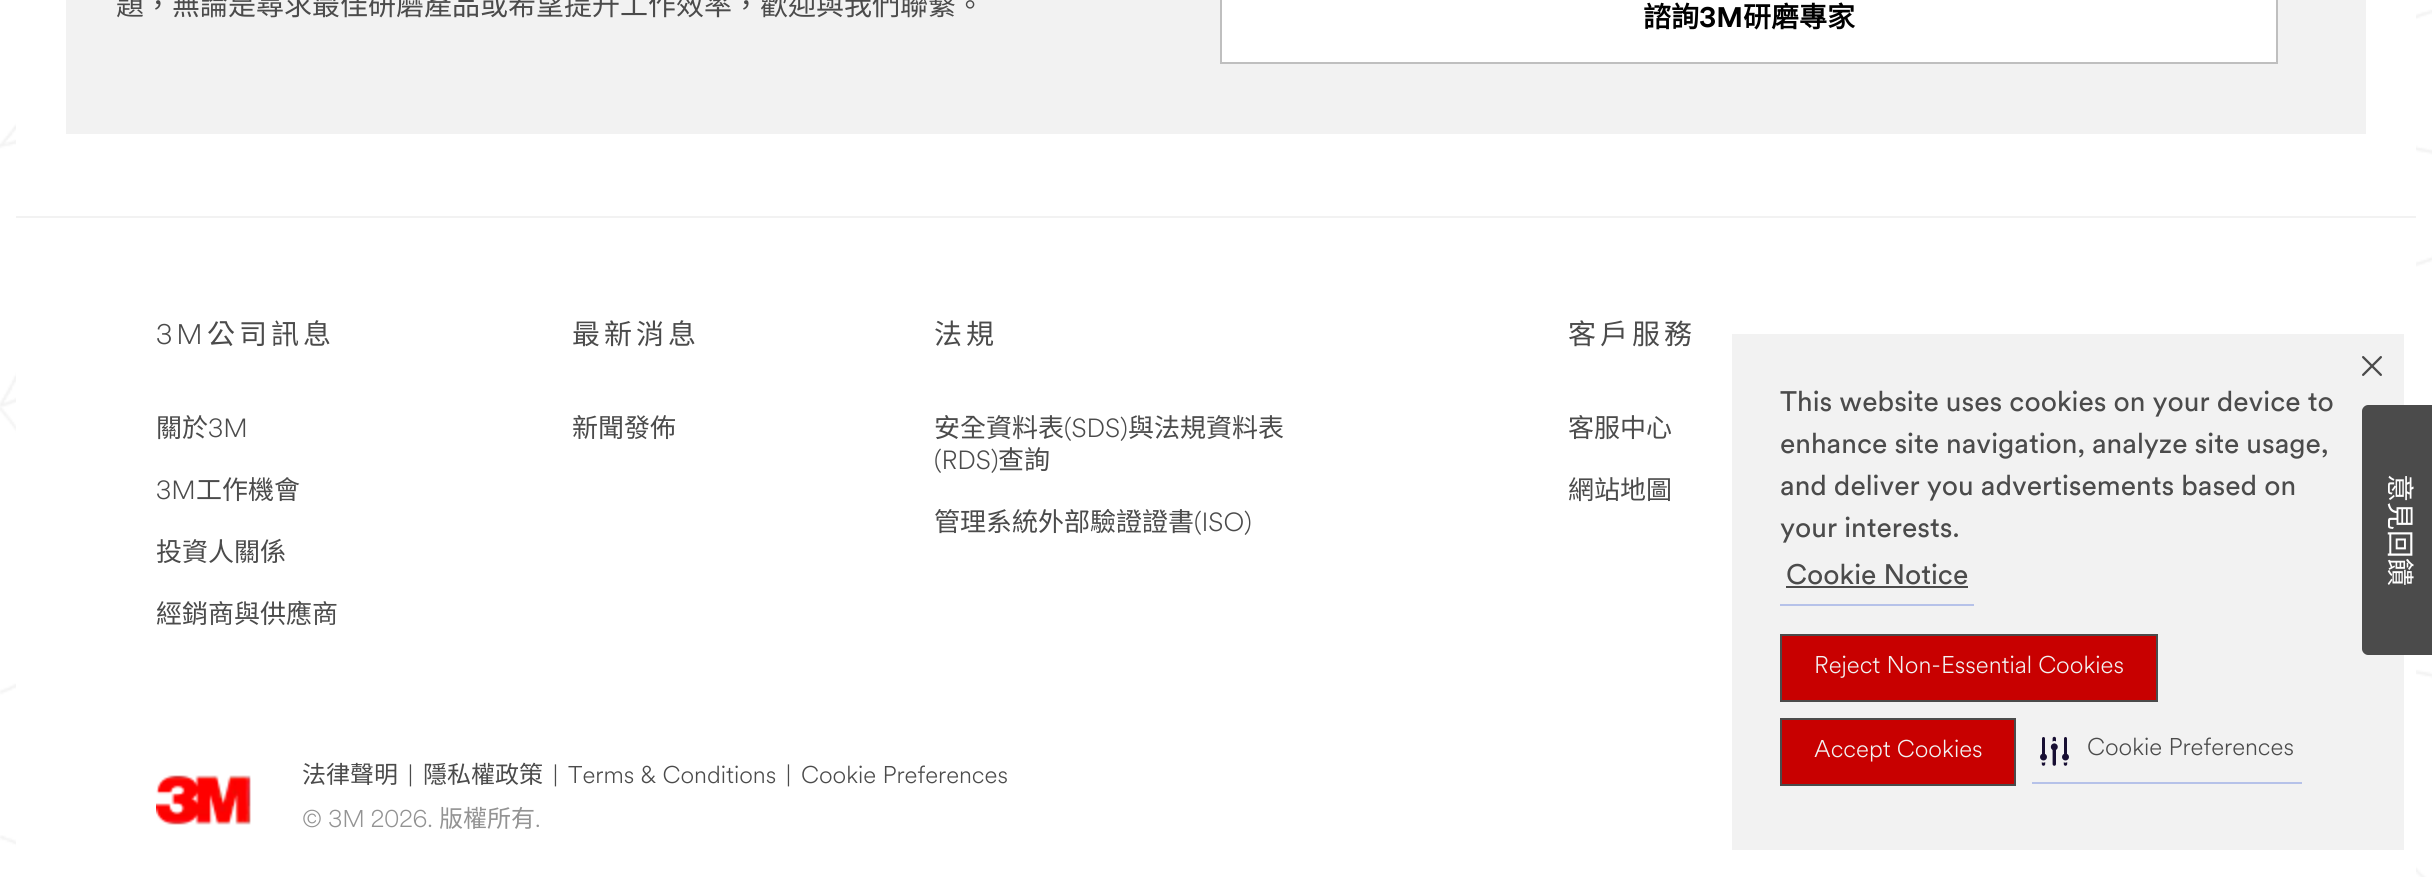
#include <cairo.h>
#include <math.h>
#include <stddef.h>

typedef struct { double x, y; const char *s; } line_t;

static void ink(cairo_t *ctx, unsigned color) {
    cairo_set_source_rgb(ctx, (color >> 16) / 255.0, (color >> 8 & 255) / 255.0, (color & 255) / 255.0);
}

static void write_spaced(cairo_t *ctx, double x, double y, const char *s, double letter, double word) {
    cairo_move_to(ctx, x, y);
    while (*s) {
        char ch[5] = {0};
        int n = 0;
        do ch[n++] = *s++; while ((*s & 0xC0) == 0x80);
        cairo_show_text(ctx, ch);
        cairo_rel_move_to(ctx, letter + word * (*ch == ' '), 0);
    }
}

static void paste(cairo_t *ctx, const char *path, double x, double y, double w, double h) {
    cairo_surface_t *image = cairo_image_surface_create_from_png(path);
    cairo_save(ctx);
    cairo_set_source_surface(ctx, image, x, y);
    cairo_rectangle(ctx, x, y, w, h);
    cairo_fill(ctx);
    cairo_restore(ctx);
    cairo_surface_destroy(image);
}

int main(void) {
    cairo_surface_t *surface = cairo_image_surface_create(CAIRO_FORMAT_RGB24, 2432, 877);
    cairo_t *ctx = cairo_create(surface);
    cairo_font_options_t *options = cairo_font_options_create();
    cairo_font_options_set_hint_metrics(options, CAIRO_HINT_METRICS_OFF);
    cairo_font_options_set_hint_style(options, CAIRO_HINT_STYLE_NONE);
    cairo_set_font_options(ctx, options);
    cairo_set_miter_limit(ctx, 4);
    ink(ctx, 0xFFFFFF);
    cairo_paint(ctx);
    paste(ctx, "media/1.png", 0, 9, 2432, 868);
    ink(ctx, 0xFFFFFF);
    cairo_rectangle(ctx, 16, 9, 2400, 868);
    cairo_fill(ctx);
    ink(ctx, 0xF2F2F2);
    cairo_rectangle(ctx, 66, 0, 2300, 134);
    cairo_fill(ctx);
    cairo_select_font_face(ctx, "Noto Sans CJK TC", CAIRO_FONT_SLANT_NORMAL, CAIRO_FONT_WEIGHT_NORMAL);
    cairo_set_font_size(ctx, 28);
    ink(ctx, 0x4B4B4B);
    cairo_move_to(ctx, 116, 15);
    cairo_show_text(ctx, "題，無論是尋求最佳研磨產品或希望提升工作效率，歡迎與我們聯繫。");
    ink(ctx, 0xFFFFFF);
    cairo_rectangle(ctx, 1221, -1, 1056, 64);
    cairo_fill_preserve(ctx);
    ink(ctx, 0xBFBFBF);
    cairo_stroke(ctx);
    cairo_select_font_face(ctx, "Noto Sans CJK TC", CAIRO_FONT_SLANT_NORMAL, CAIRO_FONT_WEIGHT_BOLD);
    ink(ctx, 0x000000);
    cairo_move_to(ctx, 1643, 27);
    cairo_show_text(ctx, "諮詢");
    cairo_select_font_face(ctx, "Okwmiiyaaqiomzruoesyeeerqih", CAIRO_FONT_SLANT_NORMAL, CAIRO_FONT_WEIGHT_BOLD);
    cairo_move_to(ctx, 1699, 27);
    cairo_show_text(ctx, "3M");
    cairo_select_font_face(ctx, "Noto Sans CJK TC", CAIRO_FONT_SLANT_NORMAL, CAIRO_FONT_WEIGHT_BOLD);
    cairo_move_to(ctx, 1743, 27);
    cairo_show_text(ctx, "研磨專家");
    ink(ctx, 0xF2F2F2);
    cairo_rectangle(ctx, 16, 216, 2400, 2);
    cairo_fill(ctx);
    cairo_select_font_face(ctx, "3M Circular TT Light", CAIRO_FONT_SLANT_NORMAL, CAIRO_FONT_WEIGHT_NORMAL);
    ink(ctx, 0x4B4B4B);
    write_spaced(ctx, 156, 344, "3M", 4, 0);
    cairo_select_font_face(ctx, "Noto Sans CJK TC", CAIRO_FONT_SLANT_NORMAL, CAIRO_FONT_WEIGHT_NORMAL);
    write_spaced(ctx, 207, 344, "公司訊息", 4, 0);
    cairo_set_font_size(ctx, 26);
    cairo_move_to(ctx, 156, 437);
    cairo_show_text(ctx, "關於");
    cairo_select_font_face(ctx, "3M Circular TT Light", CAIRO_FONT_SLANT_NORMAL, CAIRO_FONT_WEIGHT_NORMAL);
    cairo_move_to(ctx, 208, 437);
    cairo_show_text(ctx, "3M");
    cairo_move_to(ctx, 156, 499);
    cairo_show_text(ctx, "3M");
    cairo_select_font_face(ctx, "Noto Sans CJK TC", CAIRO_FONT_SLANT_NORMAL, CAIRO_FONT_WEIGHT_NORMAL);
    {
        static const line_t items[] = {
            {196, 499, "工作機會"},
            {156, 561, "投資人關係"},
            {156, 623, "經銷商與供應商"},
        };
        for (size_t i = 0; i < sizeof items / sizeof *items; i++) {
            cairo_move_to(ctx, items[i].x, items[i].y);
            cairo_show_text(ctx, items[i].s);
        }
    }
    cairo_set_font_size(ctx, 28);
    write_spaced(ctx, 572, 344, "最新消息", 4, 0);
    cairo_set_font_size(ctx, 26);
    cairo_move_to(ctx, 572, 437);
    cairo_show_text(ctx, "新聞發佈");
    cairo_set_font_size(ctx, 28);
    write_spaced(ctx, 934, 344, "法規", 4, 0);
    cairo_set_font_size(ctx, 26);
    cairo_move_to(ctx, 934, 437);
    cairo_show_text(ctx, "安全資料表");
    cairo_select_font_face(ctx, "3M Circular TT Light", CAIRO_FONT_SLANT_NORMAL, CAIRO_FONT_WEIGHT_NORMAL);
    cairo_move_to(ctx, 1064, 437);
    cairo_show_text(ctx, "(SDS)");
    cairo_select_font_face(ctx, "Noto Sans CJK TC", CAIRO_FONT_SLANT_NORMAL, CAIRO_FONT_WEIGHT_NORMAL);
    cairo_move_to(ctx, 1128, 437);
    cairo_show_text(ctx, "與法規資料表");
    cairo_select_font_face(ctx, "3M Circular TT Light", CAIRO_FONT_SLANT_NORMAL, CAIRO_FONT_WEIGHT_NORMAL);
    cairo_move_to(ctx, 934, 469);
    cairo_show_text(ctx, "(RDS)");
    cairo_select_font_face(ctx, "Noto Sans CJK TC", CAIRO_FONT_SLANT_NORMAL, CAIRO_FONT_WEIGHT_NORMAL);
    cairo_move_to(ctx, 998, 469);
    cairo_show_text(ctx, "查詢");
    cairo_move_to(ctx, 934, 531);
    cairo_show_text(ctx, "管理系統外部驗證證書");
    cairo_select_font_face(ctx, "3M Circular TT Light", CAIRO_FONT_SLANT_NORMAL, CAIRO_FONT_WEIGHT_NORMAL);
    cairo_move_to(ctx, 1194, 531);
    cairo_show_text(ctx, "(ISO)");
    cairo_select_font_face(ctx, "Noto Sans CJK TC", CAIRO_FONT_SLANT_NORMAL, CAIRO_FONT_WEIGHT_NORMAL);
    cairo_set_font_size(ctx, 28);
    write_spaced(ctx, 1568, 344, "客戶服務", 4, 0);
    cairo_set_font_size(ctx, 26);
    cairo_move_to(ctx, 1568, 437);
    cairo_show_text(ctx, "客服中心");
    cairo_move_to(ctx, 1568, 499);
    cairo_show_text(ctx, "網站地圖");
    paste(ctx, "media/2.png", 156, 775, 95, 50);
    cairo_set_font_size(ctx, 24);
    cairo_move_to(ctx, 302, 783);
    cairo_show_text(ctx, "法律聲明");
    cairo_select_font_face(ctx, "3M Circular TT Light", CAIRO_FONT_SLANT_NORMAL, CAIRO_FONT_WEIGHT_NORMAL);
    cairo_move_to(ctx, 408, 783);
    cairo_show_text(ctx, "|");
    cairo_select_font_face(ctx, "Noto Sans CJK TC", CAIRO_FONT_SLANT_NORMAL, CAIRO_FONT_WEIGHT_NORMAL);
    cairo_move_to(ctx, 423, 783);
    cairo_show_text(ctx, "隱私權政策");
    cairo_select_font_face(ctx, "3M Circular TT Light", CAIRO_FONT_SLANT_NORMAL, CAIRO_FONT_WEIGHT_NORMAL);
    {
        static const line_t items[] = {
            {553, 783, "|"},
            {568, 783, "Terms & Conditions"},
            {786, 783, "|"},
            {801, 783, "Cookie Preferences"},
        };
        for (size_t i = 0; i < sizeof items / sizeof *items; i++) {
            cairo_move_to(ctx, items[i].x, items[i].y);
            cairo_show_text(ctx, items[i].s);
        }
    }
    ink(ctx, 0x939393);
    cairo_move_to(ctx, 302, 827);
    cairo_show_text(ctx, "© 3M 2026.");
    cairo_select_font_face(ctx, "Noto Sans CJK TC", CAIRO_FONT_SLANT_NORMAL, CAIRO_FONT_WEIGHT_NORMAL);
    cairo_move_to(ctx, 439, 827);
    cairo_show_text(ctx, "版權所有");
    cairo_select_font_face(ctx, "3M Circular TT Light", CAIRO_FONT_SLANT_NORMAL, CAIRO_FONT_WEIGHT_NORMAL);
    cairo_move_to(ctx, 535, 827);
    cairo_show_text(ctx, ".");
    ink(ctx, 0xF2F2F2);
    cairo_rectangle(ctx, 1732, 334, 672, 516);
    cairo_fill(ctx);
    cairo_select_font_face(ctx, "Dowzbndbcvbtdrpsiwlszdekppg", CAIRO_FONT_SLANT_NORMAL, CAIRO_FONT_WEIGHT_NORMAL);
    cairo_set_font_size(ctx, 28);
    ink(ctx, 0x4B4B4B);
    {
        static const line_t items[] = {
            {1780, 411, "This website uses cookies on your device to"},
            {1780, 453, "enhance site navigation, analyze site usage,"},
            {1780, 495, "and deliver you advertisements based on"},
            {1780, 537, "your interests."},
        };
        for (size_t i = 0; i < sizeof items / sizeof *items; i++) {
            cairo_move_to(ctx, items[i].x, items[i].y);
            cairo_show_text(ctx, items[i].s);
        }
    }
    ink(ctx, 0xB6C2E9);
    cairo_rectangle(ctx, 1780, 604, 194, 2);
    cairo_fill(ctx);
    ink(ctx, 0x4B4B4B);
    cairo_move_to(ctx, 1786, 584);
    cairo_show_text(ctx, "Cookie Notice");
    cairo_rectangle(ctx, 1786, 586, 182, 2);
    cairo_fill(ctx);
    paste(ctx, "media/3.png", 2362, 356, 20, 20);
    ink(ctx, 0xC80000);
    cairo_rectangle(ctx, 1781, 635, 376, 66);
    cairo_fill_preserve(ctx);
    ink(ctx, 0x4B4B4B);
    cairo_stroke(ctx);
    cairo_select_font_face(ctx, "3M Circular TT Light", CAIRO_FONT_SLANT_NORMAL, CAIRO_FONT_WEIGHT_NORMAL);
    cairo_set_font_size(ctx, 24);
    ink(ctx, 0xF2F2F2);
    cairo_move_to(ctx, 1814, 673);
    cairo_show_text(ctx, "Reject Non-Essential Cookies");
    ink(ctx, 0xC80000);
    cairo_rectangle(ctx, 1781, 719, 234, 66);
    cairo_fill_preserve(ctx);
    ink(ctx, 0x4B4B4B);
    cairo_stroke(ctx);
    ink(ctx, 0xF2F2F2);
    cairo_move_to(ctx, 1814, 757);
    cairo_show_text(ctx, "Accept Cookies");
    ink(ctx, 0xB6C2E9);
    cairo_rectangle(ctx, 2032, 782, 270, 2);
    cairo_fill(ctx);
    paste(ctx, "media/4.png", 2040, 736, 29, 30);
    ink(ctx, 0x4B4B4B);
    cairo_move_to(ctx, 2087, 755);
    cairo_show_text(ctx, "Cookie Preferences");
    cairo_new_path(ctx);
    cairo_move_to(ctx, 2432, 405);
    cairo_line_to(ctx, 2432, 655);
    cairo_line_to(ctx, 2368, 655);
    cairo_curve_to(ctx, 2365, 655, 2362, 652, 2362, 649);
    cairo_line_to(ctx, 2362, 411);
    cairo_curve_to(ctx, 2362, 408, 2365, 405, 2368, 405);
    cairo_close_path(ctx);
    cairo_fill(ctx);
    cairo_select_font_face(ctx, "Noto Sans CJK TC", CAIRO_FONT_SLANT_NORMAL, CAIRO_FONT_WEIGHT_NORMAL);
    cairo_set_font_size(ctx, 28);
    ink(ctx, 0xFFFFFF);
    cairo_save(ctx);
    cairo_translate(ctx, 2390, 474);
    cairo_rotate(ctx, 90 * M_PI / 180);
    cairo_move_to(ctx, 0, 0);
    cairo_show_text(ctx, "意見回饋");
    cairo_restore(ctx);
    cairo_surface_write_to_png(surface, "image.png");
    cairo_font_options_destroy(options);
    cairo_destroy(ctx);
    cairo_surface_destroy(surface);
    return 0;
}
